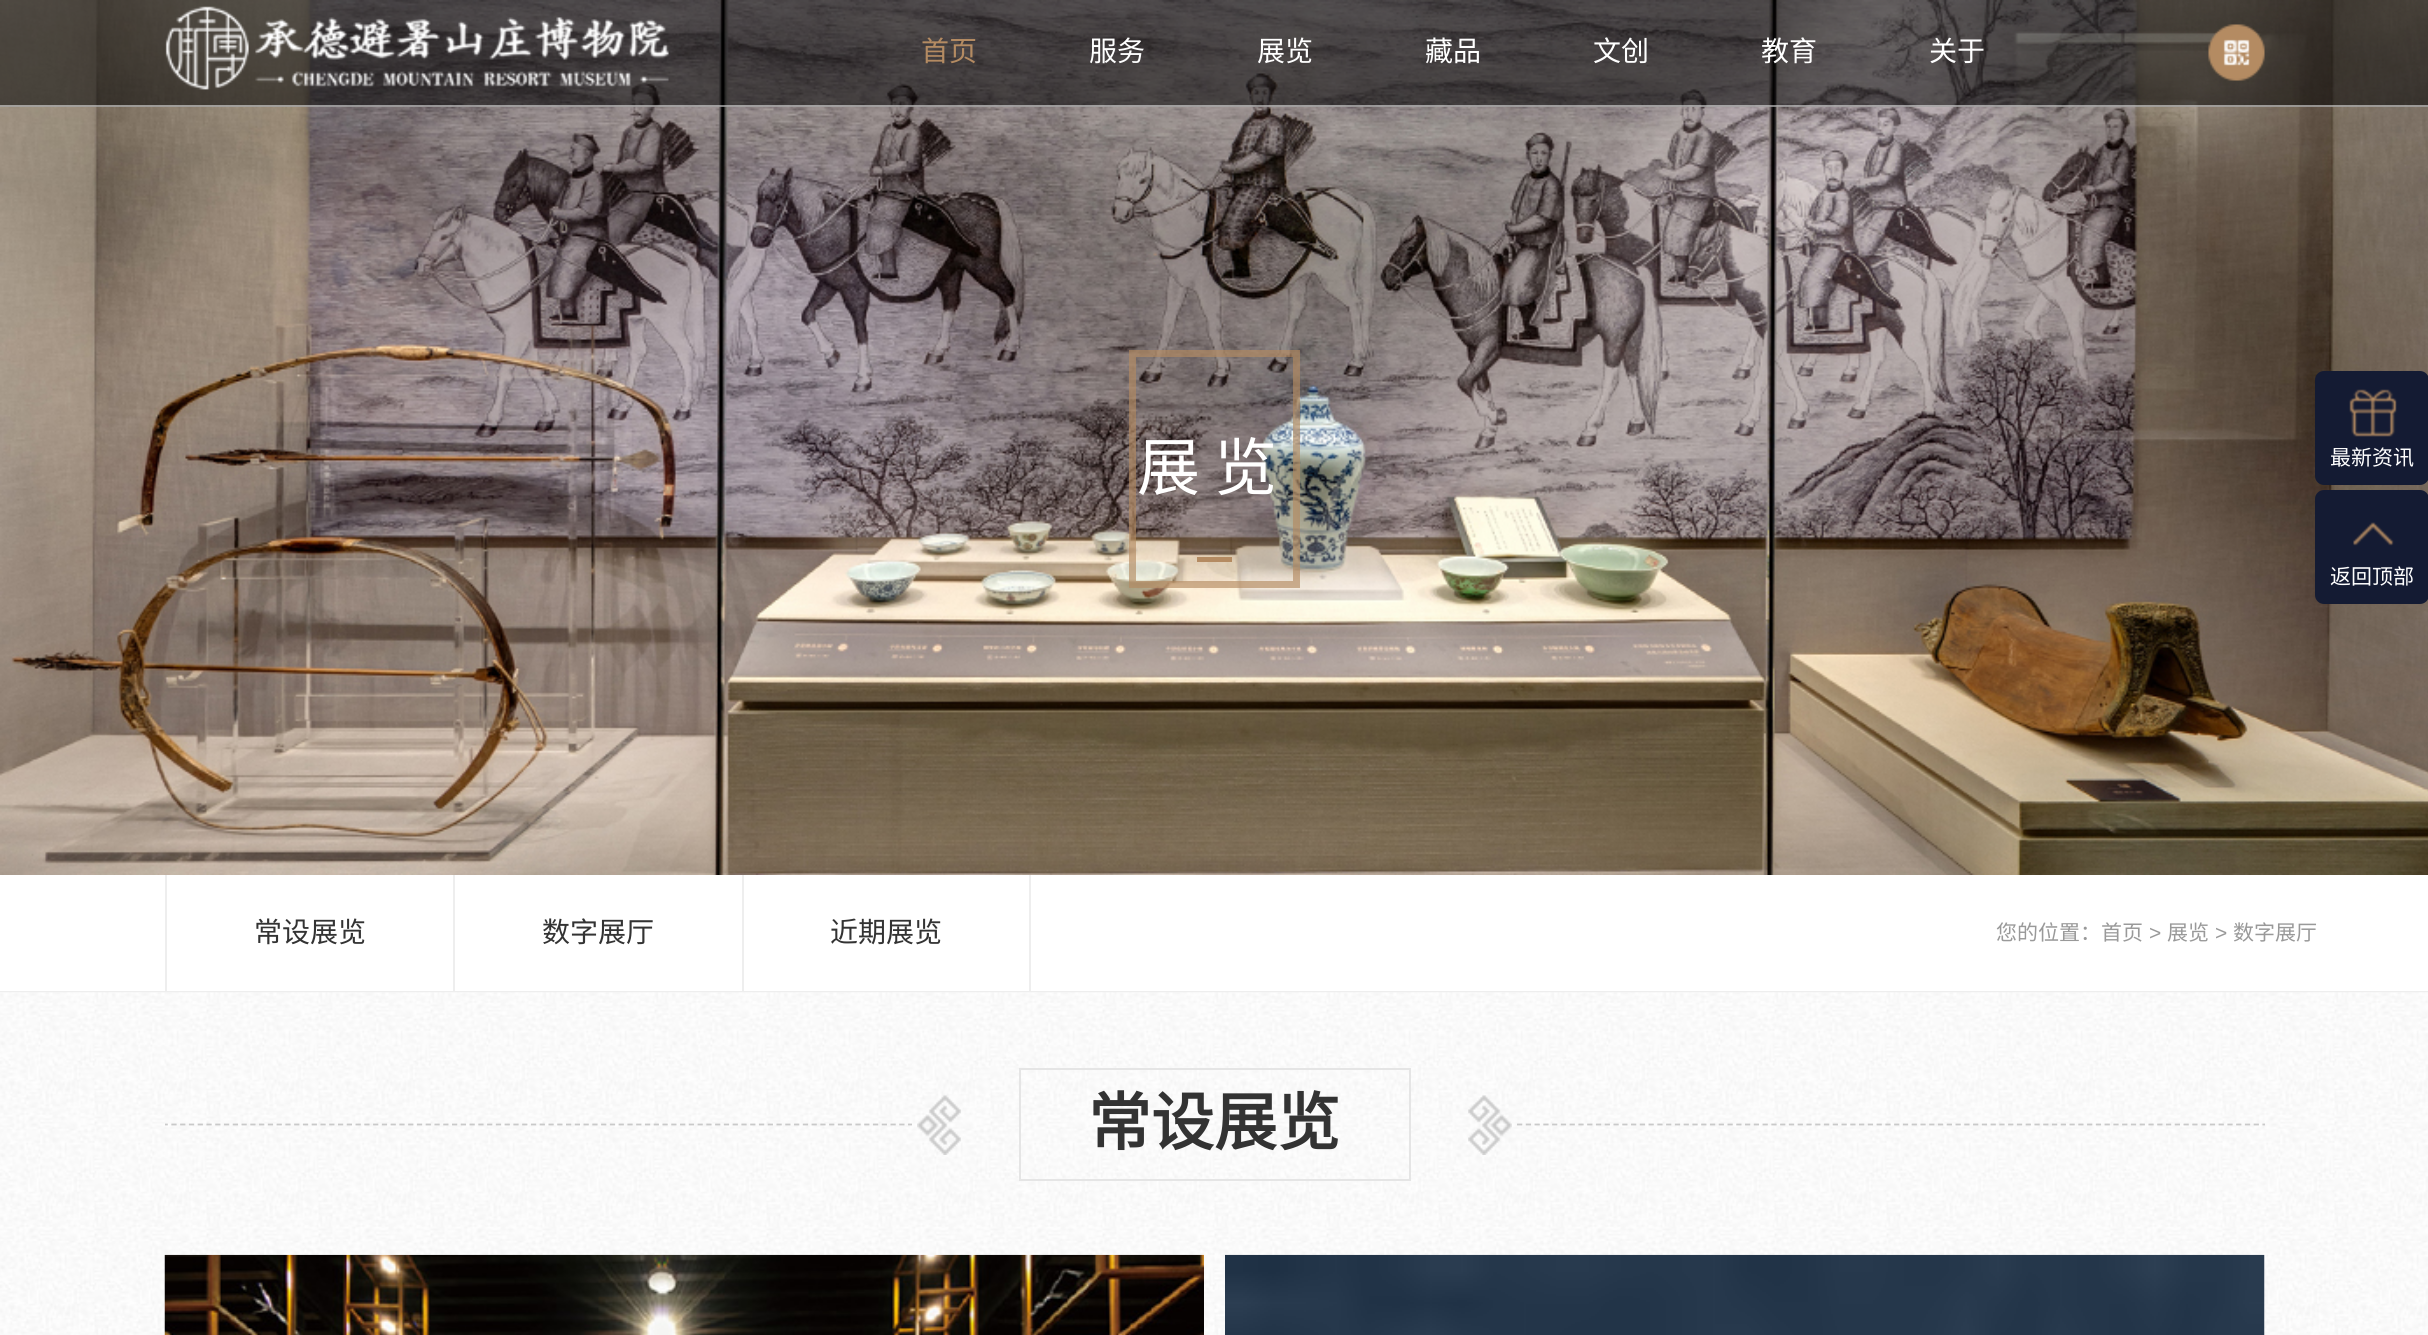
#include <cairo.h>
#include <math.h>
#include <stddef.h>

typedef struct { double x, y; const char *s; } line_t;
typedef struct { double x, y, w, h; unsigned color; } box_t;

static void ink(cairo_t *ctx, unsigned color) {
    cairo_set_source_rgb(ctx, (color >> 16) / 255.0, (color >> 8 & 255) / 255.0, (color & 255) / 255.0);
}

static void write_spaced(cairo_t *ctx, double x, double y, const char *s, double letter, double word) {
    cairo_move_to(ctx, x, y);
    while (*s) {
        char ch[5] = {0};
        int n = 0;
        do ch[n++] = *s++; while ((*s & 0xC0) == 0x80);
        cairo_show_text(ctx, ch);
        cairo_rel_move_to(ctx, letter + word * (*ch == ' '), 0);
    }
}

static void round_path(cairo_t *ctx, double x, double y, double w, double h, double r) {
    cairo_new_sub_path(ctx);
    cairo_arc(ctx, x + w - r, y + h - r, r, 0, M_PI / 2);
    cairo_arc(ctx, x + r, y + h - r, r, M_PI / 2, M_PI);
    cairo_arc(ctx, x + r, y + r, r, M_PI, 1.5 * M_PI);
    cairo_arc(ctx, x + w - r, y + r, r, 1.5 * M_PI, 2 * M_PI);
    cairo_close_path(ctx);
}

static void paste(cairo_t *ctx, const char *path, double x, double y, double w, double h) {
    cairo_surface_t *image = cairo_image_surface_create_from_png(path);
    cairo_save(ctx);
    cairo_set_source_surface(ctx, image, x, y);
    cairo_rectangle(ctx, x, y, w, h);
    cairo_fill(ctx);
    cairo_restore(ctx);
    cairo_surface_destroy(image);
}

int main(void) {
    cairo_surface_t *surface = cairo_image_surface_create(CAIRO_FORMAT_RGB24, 2428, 1335);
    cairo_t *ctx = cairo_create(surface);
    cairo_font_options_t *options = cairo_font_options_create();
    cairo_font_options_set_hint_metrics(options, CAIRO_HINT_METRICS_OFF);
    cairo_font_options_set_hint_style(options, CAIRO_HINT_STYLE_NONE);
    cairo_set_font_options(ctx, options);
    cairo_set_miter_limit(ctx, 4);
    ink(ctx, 0xFFFFFF);
    cairo_paint(ctx);
    paste(ctx, "media/3.png", 0, 0, 2428, 875);
    cairo_set_source_rgba(ctx, 0, 0, 0, 0.55);
    cairo_rectangle(ctx, 0, 0, 2428, 107);
    cairo_fill(ctx);
    cairo_set_source_rgba(ctx, 1, 1, 1, 0.5);
    cairo_rectangle(ctx, 0, 105, 2428, 2);
    cairo_fill(ctx);
    paste(ctx, "media/1.png", 165, 6, 504, 84);
    cairo_select_font_face(ctx, "Noto Sans CJK SC", CAIRO_FONT_SLANT_NORMAL, CAIRO_FONT_WEIGHT_NORMAL);
    cairo_set_font_size(ctx, 28);
    ink(ctx, 0xB48B62);
    cairo_move_to(ctx, 921, 61);
    cairo_show_text(ctx, "首页");
    ink(ctx, 0xFFFFFF);
    {
        static const line_t items[] = {
            {1089, 61, "服务"},
            {1257, 61, "展览"},
            {1425, 61, "藏品"},
            {1593, 61, "文创"},
            {1761, 61, "教育"},
            {1929, 61, "关于"},
        };
        for (size_t i = 0; i < sizeof items / sizeof *items; i++) {
            cairo_move_to(ctx, items[i].x, items[i].y);
            cairo_show_text(ctx, items[i].s);
        }
    }
    paste(ctx, "media/2.png", 2208, 24, 57, 57);
    cairo_rectangle(ctx, 1132.5, 353.5, 164, 231);
    cairo_set_source_rgba(ctx, 0.706, 0.545, 0.384, 0.65);
    cairo_set_line_width(ctx, 7);
    cairo_stroke(ctx);
    cairo_set_font_size(ctx, 63);
    ink(ctx, 0xFFFFFF);
    write_spaced(ctx, 1137, 490, "展览", 14, 0);
    {
        static const box_t items[] = {
            {1197, 557, 35, 5, 0xB48B62},
            {0, 991, 2428, 2, 0xEEEEEE},
            {165, 875, 2, 116, 0xEEEEEE},
            {453, 875, 2, 116, 0xEEEEEE},
        };
        for (size_t i = 0; i < sizeof items / sizeof *items; i++) {
            ink(ctx, items[i].color);
            cairo_rectangle(ctx, items[i].x, items[i].y, items[i].w, items[i].h);
            cairo_fill(ctx);
        }
    }
    cairo_set_font_size(ctx, 28);
    ink(ctx, 0x333333);
    cairo_move_to(ctx, 254, 942);
    cairo_show_text(ctx, "常设展览");
    ink(ctx, 0xEEEEEE);
    cairo_rectangle(ctx, 742, 875, 2, 116);
    cairo_fill(ctx);
    ink(ctx, 0x333333);
    cairo_move_to(ctx, 542, 942);
    cairo_show_text(ctx, "数字展厅");
    ink(ctx, 0xEEEEEE);
    cairo_rectangle(ctx, 1029, 875, 2, 116);
    cairo_fill(ctx);
    ink(ctx, 0x333333);
    cairo_move_to(ctx, 830, 942);
    cairo_show_text(ctx, "近期展览");
    cairo_set_font_size(ctx, 21);
    ink(ctx, 0x999999);
    cairo_move_to(ctx, 1996, 940);
    cairo_show_text(ctx, "您的位置：首页");
    cairo_select_font_face(ctx, "Liberation Sans", CAIRO_FONT_SLANT_NORMAL, CAIRO_FONT_WEIGHT_NORMAL);
    cairo_move_to(ctx, 2149, 940);
    cairo_show_text(ctx, ">");
    cairo_select_font_face(ctx, "Noto Sans CJK SC", CAIRO_FONT_SLANT_NORMAL, CAIRO_FONT_WEIGHT_NORMAL);
    cairo_move_to(ctx, 2167, 940);
    cairo_show_text(ctx, "展览");
    cairo_select_font_face(ctx, "Liberation Sans", CAIRO_FONT_SLANT_NORMAL, CAIRO_FONT_WEIGHT_NORMAL);
    cairo_move_to(ctx, 2215, 940);
    cairo_show_text(ctx, ">");
    cairo_select_font_face(ctx, "Noto Sans CJK SC", CAIRO_FONT_SLANT_NORMAL, CAIRO_FONT_WEIGHT_NORMAL);
    cairo_move_to(ctx, 2233, 940);
    cairo_show_text(ctx, "数字展厅");
    paste(ctx, "media/4.png", 0, 992, 2428, 343);
    cairo_save(ctx);
    cairo_rectangle(ctx, 165, 1068, 2100, 113);
    cairo_clip(ctx);
    cairo_new_path(ctx);
    cairo_move_to(ctx, -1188, 1124.5);
    cairo_line_to(ctx, 912, 1124.5);
    ink(ctx, 0xC9C9C9);
    cairo_set_line_width(ctx, 1.8);
    cairo_set_dash(ctx, (double[]){5.25, 3.52}, 2, 0);
    cairo_stroke(ctx);
    cairo_restore(ctx);
    cairo_rectangle(ctx, 1020, 1069, 390, 111);
    ink(ctx, 0xE5E5E5);
    cairo_set_line_width(ctx, 2);
    cairo_stroke(ctx);
    paste(ctx, "media/5.png", 917, 1095, 44, 60);
    cairo_select_font_face(ctx, "Noto Sans CJK SC", CAIRO_FONT_SLANT_NORMAL, CAIRO_FONT_WEIGHT_BOLD);
    cairo_set_font_size(ctx, 63);
    ink(ctx, 0x333333);
    cairo_move_to(ctx, 1088, 1145);
    cairo_show_text(ctx, "常设展览");
    paste(ctx, "media/6.png", 1468, 1095, 44, 60);
    cairo_save(ctx);
    cairo_rectangle(ctx, 165, 1068, 2100, 113);
    cairo_clip(ctx);
    cairo_new_path(ctx);
    cairo_move_to(ctx, 1517, 1124.5);
    cairo_line_to(ctx, 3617, 1124.5);
    ink(ctx, 0xC9C9C9);
    cairo_set_line_width(ctx, 1.8);
    cairo_set_dash(ctx, (double[]){5.25, 3.52}, 2, 0);
    cairo_stroke(ctx);
    cairo_restore(ctx);
    paste(ctx, "media/7.png", 164, 1254, 1040, 81);
    paste(ctx, "media/8.png", 1225, 1254, 1040, 81);
    ink(ctx, 0x141B33);
    round_path(ctx, 2315, 371, 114, 114, 9);
    cairo_fill(ctx);
    paste(ctx, "media/9.png", 2349, 389, 48, 48);
    cairo_select_font_face(ctx, "Noto Sans CJK SC", CAIRO_FONT_SLANT_NORMAL, CAIRO_FONT_WEIGHT_NORMAL);
    cairo_set_font_size(ctx, 21);
    ink(ctx, 0xFFFFFF);
    cairo_move_to(ctx, 2330, 465);
    cairo_show_text(ctx, "最新资讯");
    ink(ctx, 0x141B33);
    round_path(ctx, 2315, 490, 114, 114, 9);
    cairo_fill(ctx);
    paste(ctx, "media/10.png", 2353, 522, 41, 24);
    ink(ctx, 0xFFFFFF);
    cairo_move_to(ctx, 2330, 584);
    cairo_show_text(ctx, "返回顶部");
    cairo_surface_write_to_png(surface, "image.png");
    cairo_font_options_destroy(options);
    cairo_destroy(ctx);
    cairo_surface_destroy(surface);
    return 0;
}
